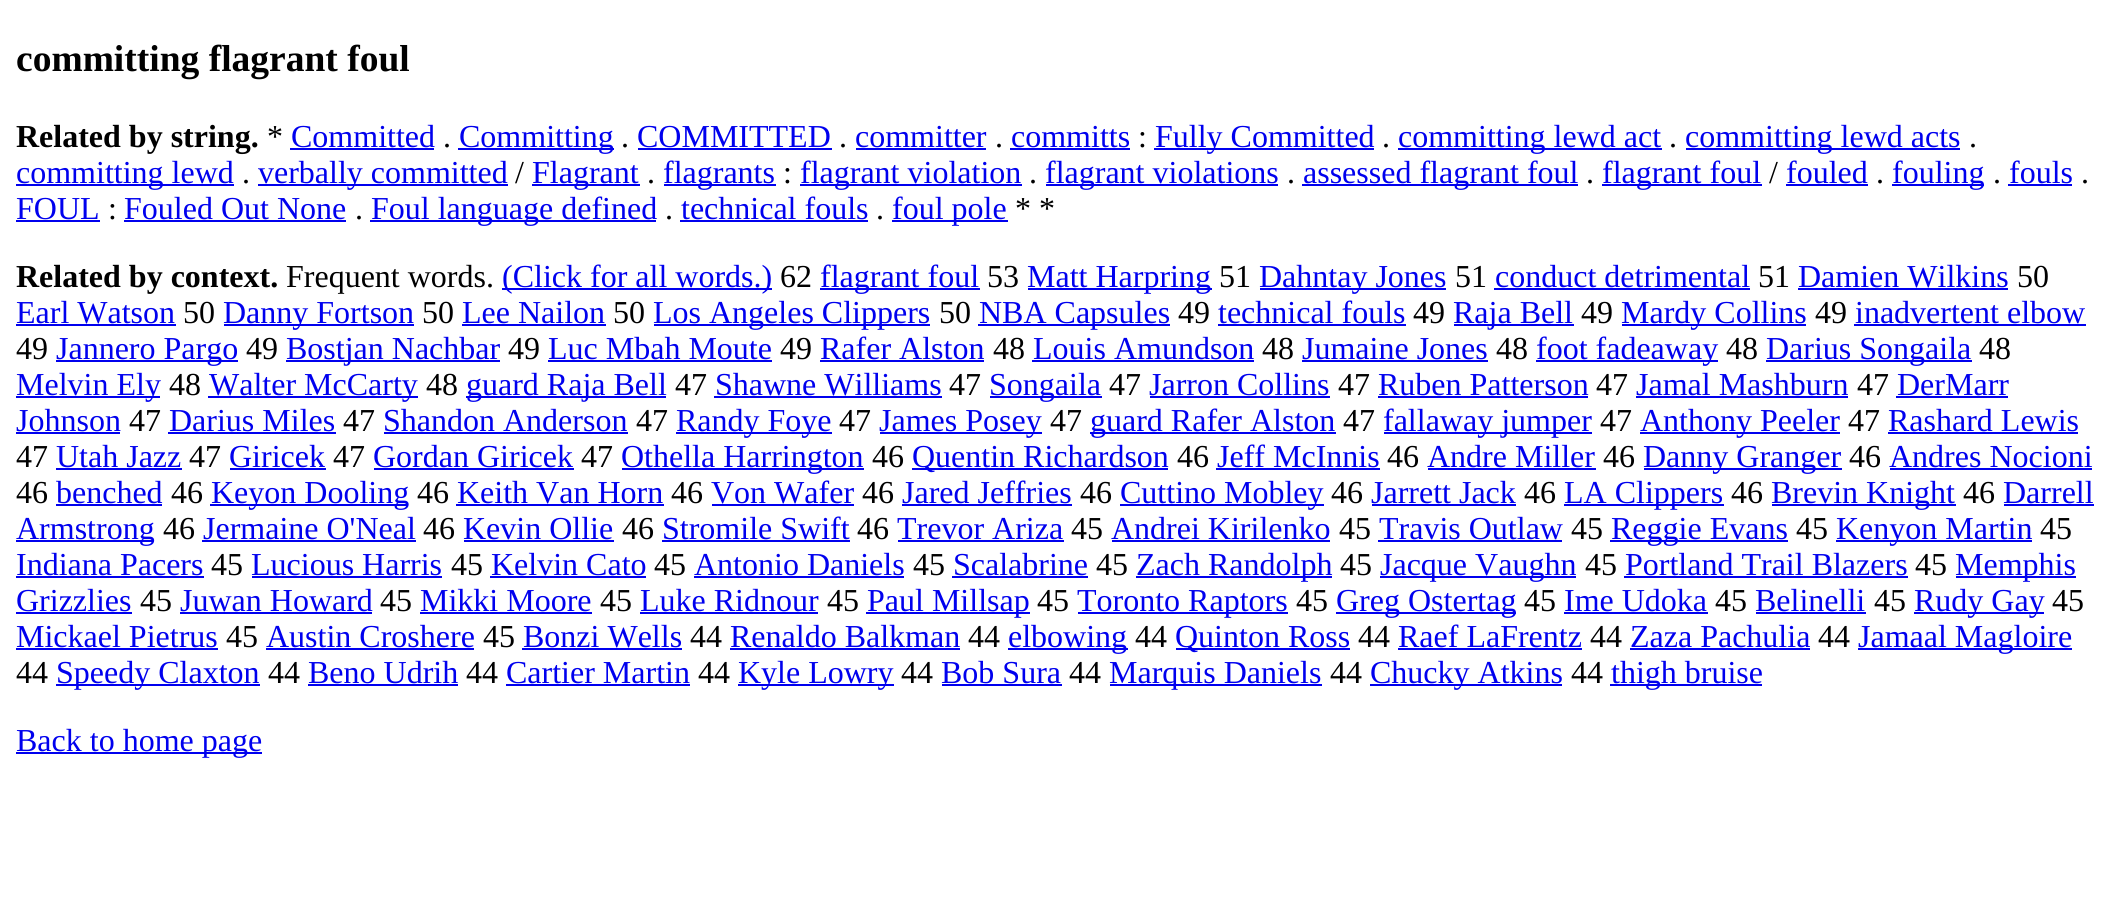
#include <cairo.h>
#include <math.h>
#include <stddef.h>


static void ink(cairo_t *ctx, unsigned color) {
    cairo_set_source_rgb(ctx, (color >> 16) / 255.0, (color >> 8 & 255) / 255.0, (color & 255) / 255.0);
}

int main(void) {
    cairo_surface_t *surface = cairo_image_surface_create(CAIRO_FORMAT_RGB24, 2115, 911);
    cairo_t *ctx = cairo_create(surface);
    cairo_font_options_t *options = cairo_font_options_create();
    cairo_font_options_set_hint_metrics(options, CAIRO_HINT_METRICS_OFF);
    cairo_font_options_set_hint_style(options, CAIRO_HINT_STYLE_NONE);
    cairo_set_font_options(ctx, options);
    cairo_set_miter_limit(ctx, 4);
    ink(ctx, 0xFFFFFF);
    cairo_paint(ctx);
    cairo_select_font_face(ctx, "Liberation Serif", CAIRO_FONT_SLANT_NORMAL, CAIRO_FONT_WEIGHT_BOLD);
    cairo_set_font_size(ctx, 37.5);
    ink(ctx, 0x000000);
    cairo_move_to(ctx, 16, 71);
    cairo_show_text(ctx, "committing flagrant foul");
    cairo_set_font_size(ctx, 32);
    cairo_move_to(ctx, 16, 147);
    cairo_show_text(ctx, "Related by string.");
    cairo_select_font_face(ctx, "Liberation Serif", CAIRO_FONT_SLANT_NORMAL, CAIRO_FONT_WEIGHT_NORMAL);
    cairo_move_to(ctx, 267, 147);
    cairo_show_text(ctx, "*");
    ink(ctx, 0x0000EE);
    cairo_move_to(ctx, 291, 147);
    cairo_show_text(ctx, "Committed");
    cairo_rectangle(ctx, 290, 148, 144, 2);
    cairo_fill(ctx);
    ink(ctx, 0x000000);
    cairo_move_to(ctx, 443, 147);
    cairo_show_text(ctx, ".");
    ink(ctx, 0x0000EE);
    cairo_rectangle(ctx, 458, 148, 156, 2);
    cairo_fill(ctx);
    cairo_move_to(ctx, 459, 147);
    cairo_show_text(ctx, "Committing");
    ink(ctx, 0x000000);
    cairo_move_to(ctx, 621, 147);
    cairo_show_text(ctx, ".");
    ink(ctx, 0x0000EE);
    cairo_move_to(ctx, 637, 147);
    cairo_show_text(ctx, "COMMITTED");
    cairo_rectangle(ctx, 638, 148, 194, 2);
    cairo_fill(ctx);
    ink(ctx, 0x000000);
    cairo_move_to(ctx, 839, 147);
    cairo_show_text(ctx, ".");
    ink(ctx, 0x0000EE);
    cairo_move_to(ctx, 855, 147);
    cairo_show_text(ctx, "committer");
    cairo_rectangle(ctx, 856, 148, 130, 2);
    cairo_fill(ctx);
    ink(ctx, 0x000000);
    cairo_move_to(ctx, 995, 147);
    cairo_show_text(ctx, ".");
    ink(ctx, 0x0000EE);
    cairo_move_to(ctx, 1011, 147);
    cairo_show_text(ctx, "committs");
    cairo_rectangle(ctx, 1010, 148, 120, 2);
    cairo_fill(ctx);
    ink(ctx, 0x000000);
    cairo_move_to(ctx, 1138, 147);
    cairo_show_text(ctx, ":");
    ink(ctx, 0x0000EE);
    cairo_rectangle(ctx, 1154, 148, 220, 2);
    cairo_fill(ctx);
    cairo_move_to(ctx, 1155, 147);
    cairo_show_text(ctx, "Fully Committed");
    ink(ctx, 0x000000);
    cairo_move_to(ctx, 1382, 147);
    cairo_show_text(ctx, ".");
    ink(ctx, 0x0000EE);
    cairo_rectangle(ctx, 1398, 148, 264, 2);
    cairo_fill(ctx);
    cairo_move_to(ctx, 1398, 147);
    cairo_show_text(ctx, "committing lewd act");
    ink(ctx, 0x000000);
    cairo_move_to(ctx, 1669, 147);
    cairo_show_text(ctx, ".");
    ink(ctx, 0x0000EE);
    cairo_rectangle(ctx, 1686, 148, 274, 2);
    cairo_fill(ctx);
    cairo_move_to(ctx, 1685, 147);
    cairo_show_text(ctx, "committing lewd acts");
    ink(ctx, 0x000000);
    cairo_move_to(ctx, 1969, 147);
    cairo_show_text(ctx, ".");
    ink(ctx, 0x0000EE);
    cairo_rectangle(ctx, 16, 184, 218, 2);
    cairo_fill(ctx);
    cairo_move_to(ctx, 16, 183);
    cairo_show_text(ctx, "committing lewd");
    ink(ctx, 0x000000);
    cairo_move_to(ctx, 242, 183);
    cairo_show_text(ctx, ".");
    ink(ctx, 0x0000EE);
    cairo_rectangle(ctx, 258, 184, 250, 2);
    cairo_fill(ctx);
    cairo_move_to(ctx, 258, 183);
    cairo_show_text(ctx, "verbally committed");
    ink(ctx, 0x000000);
    cairo_move_to(ctx, 515, 183);
    cairo_show_text(ctx, "/");
    ink(ctx, 0x0000EE);
    cairo_rectangle(ctx, 532, 184, 108, 2);
    cairo_fill(ctx);
    cairo_move_to(ctx, 532, 183);
    cairo_show_text(ctx, "Flagrant");
    ink(ctx, 0x000000);
    cairo_move_to(ctx, 647, 183);
    cairo_show_text(ctx, ".");
    ink(ctx, 0x0000EE);
    cairo_rectangle(ctx, 664, 184, 112, 2);
    cairo_fill(ctx);
    cairo_move_to(ctx, 663, 183);
    cairo_show_text(ctx, "flagrants");
    ink(ctx, 0x000000);
    cairo_move_to(ctx, 783, 183);
    cairo_show_text(ctx, ":");
    ink(ctx, 0x0000EE);
    cairo_rectangle(ctx, 800, 184, 222, 2);
    cairo_fill(ctx);
    cairo_move_to(ctx, 800, 183);
    cairo_show_text(ctx, "flagrant violation");
    ink(ctx, 0x000000);
    cairo_move_to(ctx, 1029, 183);
    cairo_show_text(ctx, ".");
    ink(ctx, 0x0000EE);
    cairo_rectangle(ctx, 1046, 184, 232, 2);
    cairo_fill(ctx);
    cairo_move_to(ctx, 1045, 183);
    cairo_show_text(ctx, "flagrant violations");
    ink(ctx, 0x000000);
    cairo_move_to(ctx, 1287, 183);
    cairo_show_text(ctx, ".");
    ink(ctx, 0x0000EE);
    cairo_rectangle(ctx, 1302, 184, 276, 2);
    cairo_fill(ctx);
    cairo_move_to(ctx, 1303, 183);
    cairo_show_text(ctx, "assessed flagrant foul");
    ink(ctx, 0x000000);
    cairo_move_to(ctx, 1586, 183);
    cairo_show_text(ctx, ".");
    ink(ctx, 0x0000EE);
    cairo_rectangle(ctx, 1602, 184, 160, 2);
    cairo_fill(ctx);
    cairo_move_to(ctx, 1602, 183);
    cairo_show_text(ctx, "flagrant foul");
    ink(ctx, 0x000000);
    cairo_move_to(ctx, 1769, 183);
    cairo_show_text(ctx, "/");
    ink(ctx, 0x0000EE);
    cairo_move_to(ctx, 1786, 183);
    cairo_show_text(ctx, "fouled");
    cairo_rectangle(ctx, 1786, 184, 82, 2);
    cairo_fill(ctx);
    ink(ctx, 0x000000);
    cairo_move_to(ctx, 1876, 183);
    cairo_show_text(ctx, ".");
    ink(ctx, 0x0000EE);
    cairo_rectangle(ctx, 1892, 184, 92, 2);
    cairo_fill(ctx);
    cairo_move_to(ctx, 1892, 183);
    cairo_show_text(ctx, "fouling");
    ink(ctx, 0x000000);
    cairo_move_to(ctx, 1993, 183);
    cairo_show_text(ctx, ".");
    ink(ctx, 0x0000EE);
    cairo_move_to(ctx, 2009, 183);
    cairo_show_text(ctx, "fouls");
    cairo_rectangle(ctx, 2008, 184, 64, 2);
    cairo_fill(ctx);
    ink(ctx, 0x000000);
    cairo_move_to(ctx, 2081, 183);
    cairo_show_text(ctx, ".");
    ink(ctx, 0x0000EE);
    cairo_move_to(ctx, 16, 219);
    cairo_show_text(ctx, "FOUL");
    cairo_rectangle(ctx, 16, 220, 84, 2);
    cairo_fill(ctx);
    ink(ctx, 0x000000);
    cairo_move_to(ctx, 108, 219);
    cairo_show_text(ctx, ":");
    ink(ctx, 0x0000EE);
    cairo_move_to(ctx, 124, 219);
    cairo_show_text(ctx, "Fouled Out None");
    cairo_rectangle(ctx, 124, 220, 222, 2);
    cairo_fill(ctx);
    ink(ctx, 0x000000);
    cairo_move_to(ctx, 355, 219);
    cairo_show_text(ctx, ".");
    ink(ctx, 0x0000EE);
    cairo_rectangle(ctx, 370, 220, 286, 2);
    cairo_fill(ctx);
    cairo_move_to(ctx, 371, 219);
    cairo_show_text(ctx, "Foul language defined");
    ink(ctx, 0x000000);
    cairo_move_to(ctx, 665, 219);
    cairo_show_text(ctx, ".");
    ink(ctx, 0x0000EE);
    cairo_move_to(ctx, 681, 219);
    cairo_show_text(ctx, "technical fouls");
    cairo_rectangle(ctx, 680, 220, 188, 2);
    cairo_fill(ctx);
    ink(ctx, 0x000000);
    cairo_move_to(ctx, 876, 219);
    cairo_show_text(ctx, ".");
    ink(ctx, 0x0000EE);
    cairo_rectangle(ctx, 892, 220, 116, 2);
    cairo_fill(ctx);
    cairo_move_to(ctx, 892, 219);
    cairo_show_text(ctx, "foul pole");
    ink(ctx, 0x000000);
    cairo_move_to(ctx, 1015, 219);
    cairo_show_text(ctx, "* *");
    cairo_select_font_face(ctx, "Liberation Serif", CAIRO_FONT_SLANT_NORMAL, CAIRO_FONT_WEIGHT_BOLD);
    cairo_move_to(ctx, 16, 287);
    cairo_show_text(ctx, "Related by context.");
    cairo_select_font_face(ctx, "Liberation Serif", CAIRO_FONT_SLANT_NORMAL, CAIRO_FONT_WEIGHT_NORMAL);
    cairo_move_to(ctx, 286, 287);
    cairo_show_text(ctx, "Frequent words.");
    ink(ctx, 0x0000EE);
    cairo_rectangle(ctx, 502, 288, 270, 2);
    cairo_fill(ctx);
    cairo_move_to(ctx, 502, 287);
    cairo_show_text(ctx, "(Click for all words.)");
    ink(ctx, 0x000000);
    cairo_move_to(ctx, 780, 287);
    cairo_show_text(ctx, "62");
    ink(ctx, 0x0000EE);
    cairo_rectangle(ctx, 820, 288, 160, 2);
    cairo_fill(ctx);
    cairo_move_to(ctx, 820, 287);
    cairo_show_text(ctx, "flagrant foul");
    ink(ctx, 0x000000);
    cairo_move_to(ctx, 987, 287);
    cairo_show_text(ctx, "53");
    ink(ctx, 0x0000EE);
    cairo_rectangle(ctx, 1028, 288, 184, 2);
    cairo_fill(ctx);
    cairo_move_to(ctx, 1027, 287);
    cairo_show_text(ctx, "Matt Harpring");
    ink(ctx, 0x000000);
    cairo_move_to(ctx, 1219, 287);
    cairo_show_text(ctx, "51");
    ink(ctx, 0x0000EE);
    cairo_rectangle(ctx, 1260, 288, 186, 2);
    cairo_fill(ctx);
    cairo_move_to(ctx, 1259, 287);
    cairo_show_text(ctx, "Dahntay Jones");
    ink(ctx, 0x000000);
    cairo_move_to(ctx, 1455, 287);
    cairo_show_text(ctx, "51");
    ink(ctx, 0x0000EE);
    cairo_move_to(ctx, 1495, 287);
    cairo_show_text(ctx, "conduct detrimental");
    cairo_rectangle(ctx, 1494, 288, 256, 2);
    cairo_fill(ctx);
    ink(ctx, 0x000000);
    cairo_move_to(ctx, 1758, 287);
    cairo_show_text(ctx, "51");
    ink(ctx, 0x0000EE);
    cairo_move_to(ctx, 1798, 287);
    cairo_show_text(ctx, "Damien Wilkins");
    cairo_rectangle(ctx, 1798, 288, 210, 2);
    cairo_fill(ctx);
    ink(ctx, 0x000000);
    cairo_move_to(ctx, 2017, 287);
    cairo_show_text(ctx, "50");
    ink(ctx, 0x0000EE);
    cairo_move_to(ctx, 16, 323);
    cairo_show_text(ctx, "Earl Watson");
    cairo_rectangle(ctx, 16, 324, 160, 2);
    cairo_fill(ctx);
    ink(ctx, 0x000000);
    cairo_move_to(ctx, 183, 323);
    cairo_show_text(ctx, "50");
    ink(ctx, 0x0000EE);
    cairo_rectangle(ctx, 224, 324, 190, 2);
    cairo_fill(ctx);
    cairo_move_to(ctx, 223, 323);
    cairo_show_text(ctx, "Danny Fortson");
    ink(ctx, 0x000000);
    cairo_move_to(ctx, 422, 323);
    cairo_show_text(ctx, "50");
    ink(ctx, 0x0000EE);
    cairo_move_to(ctx, 462, 323);
    cairo_show_text(ctx, "Lee Nailon");
    cairo_rectangle(ctx, 462, 324, 144, 2);
    cairo_fill(ctx);
    ink(ctx, 0x000000);
    cairo_move_to(ctx, 613, 323);
    cairo_show_text(ctx, "50");
    ink(ctx, 0x0000EE);
    cairo_rectangle(ctx, 654, 324, 276, 2);
    cairo_fill(ctx);
    cairo_move_to(ctx, 653, 323);
    cairo_show_text(ctx, "Los Angeles Clippers");
    ink(ctx, 0x000000);
    cairo_move_to(ctx, 939, 323);
    cairo_show_text(ctx, "50");
    ink(ctx, 0x0000EE);
    cairo_rectangle(ctx, 978, 324, 192, 2);
    cairo_fill(ctx);
    cairo_move_to(ctx, 979, 323);
    cairo_show_text(ctx, "NBA Capsules");
    ink(ctx, 0x000000);
    cairo_move_to(ctx, 1178, 323);
    cairo_show_text(ctx, "49");
    ink(ctx, 0x0000EE);
    cairo_move_to(ctx, 1218, 323);
    cairo_show_text(ctx, "technical fouls");
    cairo_rectangle(ctx, 1218, 324, 188, 2);
    cairo_fill(ctx);
    ink(ctx, 0x000000);
    cairo_move_to(ctx, 1413, 323);
    cairo_show_text(ctx, "49");
    ink(ctx, 0x0000EE);
    cairo_rectangle(ctx, 1454, 324, 120, 2);
    cairo_fill(ctx);
    cairo_move_to(ctx, 1453, 323);
    cairo_show_text(ctx, "Raja Bell");
    ink(ctx, 0x000000);
    cairo_move_to(ctx, 1581, 323);
    cairo_show_text(ctx, "49");
    ink(ctx, 0x0000EE);
    cairo_rectangle(ctx, 1622, 324, 184, 2);
    cairo_fill(ctx);
    cairo_move_to(ctx, 1621, 323);
    cairo_show_text(ctx, "Mardy Collins");
    ink(ctx, 0x000000);
    cairo_move_to(ctx, 1815, 323);
    cairo_show_text(ctx, "49");
    ink(ctx, 0x0000EE);
    cairo_move_to(ctx, 1855, 323);
    cairo_show_text(ctx, "inadvertent elbow");
    cairo_rectangle(ctx, 1854, 324, 232, 2);
    cairo_fill(ctx);
    ink(ctx, 0x000000);
    cairo_move_to(ctx, 16, 359);
    cairo_show_text(ctx, "49");
    ink(ctx, 0x0000EE);
    cairo_rectangle(ctx, 56, 360, 182, 2);
    cairo_fill(ctx);
    cairo_move_to(ctx, 56, 359);
    cairo_show_text(ctx, "Jannero Pargo");
    ink(ctx, 0x000000);
    cairo_move_to(ctx, 246, 359);
    cairo_show_text(ctx, "49");
    ink(ctx, 0x0000EE);
    cairo_rectangle(ctx, 286, 360, 214, 2);
    cairo_fill(ctx);
    cairo_move_to(ctx, 286, 359);
    cairo_show_text(ctx, "Bostjan Nachbar");
    ink(ctx, 0x000000);
    cairo_move_to(ctx, 508, 359);
    cairo_show_text(ctx, "49");
    ink(ctx, 0x0000EE);
    cairo_move_to(ctx, 548, 359);
    cairo_show_text(ctx, "Luc Mbah Moute");
    cairo_rectangle(ctx, 548, 360, 224, 2);
    cairo_fill(ctx);
    ink(ctx, 0x000000);
    cairo_move_to(ctx, 780, 359);
    cairo_show_text(ctx, "49");
    ink(ctx, 0x0000EE);
    cairo_move_to(ctx, 820, 359);
    cairo_show_text(ctx, "Rafer Alston");
    cairo_rectangle(ctx, 820, 360, 164, 2);
    cairo_fill(ctx);
    ink(ctx, 0x000000);
    cairo_move_to(ctx, 993, 359);
    cairo_show_text(ctx, "48");
    ink(ctx, 0x0000EE);
    cairo_move_to(ctx, 1033, 359);
    cairo_show_text(ctx, "Louis Amundson");
    cairo_rectangle(ctx, 1032, 360, 222, 2);
    cairo_fill(ctx);
    ink(ctx, 0x000000);
    cairo_move_to(ctx, 1262, 359);
    cairo_show_text(ctx, "48");
    ink(ctx, 0x0000EE);
    cairo_move_to(ctx, 1302, 359);
    cairo_show_text(ctx, "Jumaine Jones");
    cairo_rectangle(ctx, 1302, 360, 186, 2);
    cairo_fill(ctx);
    ink(ctx, 0x000000);
    cairo_move_to(ctx, 1496, 359);
    cairo_show_text(ctx, "48");
    ink(ctx, 0x0000EE);
    cairo_rectangle(ctx, 1536, 360, 182, 2);
    cairo_fill(ctx);
    cairo_move_to(ctx, 1536, 359);
    cairo_show_text(ctx, "foot fadeaway");
    ink(ctx, 0x000000);
    cairo_move_to(ctx, 1726, 359);
    cairo_show_text(ctx, "48");
    ink(ctx, 0x0000EE);
    cairo_rectangle(ctx, 1766, 360, 206, 2);
    cairo_fill(ctx);
    cairo_move_to(ctx, 1766, 359);
    cairo_show_text(ctx, "Darius Songaila");
    ink(ctx, 0x000000);
    cairo_move_to(ctx, 1979, 359);
    cairo_show_text(ctx, "48");
    ink(ctx, 0x0000EE);
    cairo_rectangle(ctx, 16, 396, 144, 2);
    cairo_fill(ctx);
    cairo_move_to(ctx, 16, 395);
    cairo_show_text(ctx, "Melvin Ely");
    ink(ctx, 0x000000);
    cairo_move_to(ctx, 169, 395);
    cairo_show_text(ctx, "48");
    ink(ctx, 0x0000EE);
    cairo_rectangle(ctx, 208, 396, 210, 2);
    cairo_fill(ctx);
    cairo_move_to(ctx, 209, 395);
    cairo_show_text(ctx, "Walter McCarty");
    ink(ctx, 0x000000);
    cairo_move_to(ctx, 426, 395);
    cairo_show_text(ctx, "48");
    ink(ctx, 0x0000EE);
    cairo_rectangle(ctx, 466, 396, 200, 2);
    cairo_fill(ctx);
    cairo_move_to(ctx, 466, 395);
    cairo_show_text(ctx, "guard Raja Bell");
    ink(ctx, 0x000000);
    cairo_move_to(ctx, 675, 395);
    cairo_show_text(ctx, "47");
    ink(ctx, 0x0000EE);
    cairo_move_to(ctx, 715, 395);
    cairo_show_text(ctx, "Shawne Williams");
    cairo_rectangle(ctx, 714, 396, 228, 2);
    cairo_fill(ctx);
    ink(ctx, 0x000000);
    cairo_move_to(ctx, 949, 395);
    cairo_show_text(ctx, "47");
    ink(ctx, 0x0000EE);
    cairo_rectangle(ctx, 990, 396, 112, 2);
    cairo_fill(ctx);
    cairo_move_to(ctx, 989, 395);
    cairo_show_text(ctx, "Songaila");
    ink(ctx, 0x000000);
    cairo_move_to(ctx, 1109, 395);
    cairo_show_text(ctx, "47");
    ink(ctx, 0x0000EE);
    cairo_move_to(ctx, 1149, 395);
    cairo_show_text(ctx, "Jarron Collins");
    cairo_rectangle(ctx, 1150, 396, 180, 2);
    cairo_fill(ctx);
    ink(ctx, 0x000000);
    cairo_move_to(ctx, 1338, 395);
    cairo_show_text(ctx, "47");
    ink(ctx, 0x0000EE);
    cairo_move_to(ctx, 1378, 395);
    cairo_show_text(ctx, "Ruben Patterson");
    cairo_rectangle(ctx, 1378, 396, 210, 2);
    cairo_fill(ctx);
    ink(ctx, 0x000000);
    cairo_move_to(ctx, 1596, 395);
    cairo_show_text(ctx, "47");
    ink(ctx, 0x0000EE);
    cairo_move_to(ctx, 1636, 395);
    cairo_show_text(ctx, "Jamal Mashburn");
    cairo_rectangle(ctx, 1636, 396, 212, 2);
    cairo_fill(ctx);
    ink(ctx, 0x000000);
    cairo_move_to(ctx, 1857, 395);
    cairo_show_text(ctx, "47");
    ink(ctx, 0x0000EE);
    cairo_move_to(ctx, 1897, 395);
    cairo_show_text(ctx, "DerMarr");
    cairo_rectangle(ctx, 1896, 396, 112, 2);
    cairo_fill(ctx);
    cairo_move_to(ctx, 16, 431);
    cairo_show_text(ctx, "Johnson");
    cairo_rectangle(ctx, 16, 432, 104, 2);
    cairo_fill(ctx);
    ink(ctx, 0x000000);
    cairo_move_to(ctx, 129, 431);
    cairo_show_text(ctx, "47");
    ink(ctx, 0x0000EE);
    cairo_move_to(ctx, 169, 431);
    cairo_show_text(ctx, "Darius Miles");
    cairo_rectangle(ctx, 168, 432, 168, 2);
    cairo_fill(ctx);
    ink(ctx, 0x000000);
    cairo_move_to(ctx, 343, 431);
    cairo_show_text(ctx, "47");
    ink(ctx, 0x0000EE);
    cairo_move_to(ctx, 383, 431);
    cairo_show_text(ctx, "Shandon Anderson");
    cairo_rectangle(ctx, 384, 432, 244, 2);
    cairo_fill(ctx);
    ink(ctx, 0x000000);
    cairo_move_to(ctx, 636, 431);
    cairo_show_text(ctx, "47");
    ink(ctx, 0x0000EE);
    cairo_rectangle(ctx, 676, 432, 156, 2);
    cairo_fill(ctx);
    cairo_move_to(ctx, 676, 431);
    cairo_show_text(ctx, "Randy Foye");
    ink(ctx, 0x000000);
    cairo_move_to(ctx, 839, 431);
    cairo_show_text(ctx, "47");
    ink(ctx, 0x0000EE);
    cairo_rectangle(ctx, 880, 432, 162, 2);
    cairo_fill(ctx);
    cairo_move_to(ctx, 879, 431);
    cairo_show_text(ctx, "James Posey");
    ink(ctx, 0x000000);
    cairo_move_to(ctx, 1050, 431);
    cairo_show_text(ctx, "47");
    ink(ctx, 0x0000EE);
    cairo_rectangle(ctx, 1090, 432, 246, 2);
    cairo_fill(ctx);
    cairo_move_to(ctx, 1090, 431);
    cairo_show_text(ctx, "guard Rafer Alston");
    ink(ctx, 0x000000);
    cairo_move_to(ctx, 1343, 431);
    cairo_show_text(ctx, "47");
    ink(ctx, 0x0000EE);
    cairo_rectangle(ctx, 1384, 432, 208, 2);
    cairo_fill(ctx);
    cairo_move_to(ctx, 1383, 431);
    cairo_show_text(ctx, "fallaway jumper");
    ink(ctx, 0x000000);
    cairo_move_to(ctx, 1600, 431);
    cairo_show_text(ctx, "47");
    ink(ctx, 0x0000EE);
    cairo_rectangle(ctx, 1640, 432, 200, 2);
    cairo_fill(ctx);
    cairo_move_to(ctx, 1640, 431);
    cairo_show_text(ctx, "Anthony Peeler");
    ink(ctx, 0x000000);
    cairo_move_to(ctx, 1848, 431);
    cairo_show_text(ctx, "47");
    ink(ctx, 0x0000EE);
    cairo_move_to(ctx, 1888, 431);
    cairo_show_text(ctx, "Rashard Lewis");
    cairo_rectangle(ctx, 1888, 432, 190, 2);
    cairo_fill(ctx);
    ink(ctx, 0x000000);
    cairo_move_to(ctx, 16, 467);
    cairo_show_text(ctx, "47");
    ink(ctx, 0x0000EE);
    cairo_move_to(ctx, 56, 467);
    cairo_show_text(ctx, "Utah Jazz");
    cairo_rectangle(ctx, 56, 468, 126, 2);
    cairo_fill(ctx);
    ink(ctx, 0x000000);
    cairo_move_to(ctx, 189, 467);
    cairo_show_text(ctx, "47");
    ink(ctx, 0x0000EE);
    cairo_move_to(ctx, 229, 467);
    cairo_show_text(ctx, "Giricek");
    cairo_rectangle(ctx, 230, 468, 96, 2);
    cairo_fill(ctx);
    ink(ctx, 0x000000);
    cairo_move_to(ctx, 333, 467);
    cairo_show_text(ctx, "47");
    ink(ctx, 0x0000EE);
    cairo_move_to(ctx, 373, 467);
    cairo_show_text(ctx, "Gordan Giricek");
    cairo_rectangle(ctx, 374, 468, 200, 2);
    cairo_fill(ctx);
    ink(ctx, 0x000000);
    cairo_move_to(ctx, 581, 467);
    cairo_show_text(ctx, "47");
    ink(ctx, 0x0000EE);
    cairo_rectangle(ctx, 622, 468, 242, 2);
    cairo_fill(ctx);
    cairo_move_to(ctx, 621, 467);
    cairo_show_text(ctx, "Othella Harrington");
    ink(ctx, 0x000000);
    cairo_move_to(ctx, 872, 467);
    cairo_show_text(ctx, "46");
    ink(ctx, 0x0000EE);
    cairo_rectangle(ctx, 912, 468, 256, 2);
    cairo_fill(ctx);
    cairo_move_to(ctx, 912, 467);
    cairo_show_text(ctx, "Quentin Richardson");
    ink(ctx, 0x000000);
    cairo_move_to(ctx, 1177, 467);
    cairo_show_text(ctx, "46");
    ink(ctx, 0x0000EE);
    cairo_move_to(ctx, 1217, 467);
    cairo_show_text(ctx, "Jeff McInnis");
    cairo_rectangle(ctx, 1216, 468, 164, 2);
    cairo_fill(ctx);
    ink(ctx, 0x000000);
    cairo_move_to(ctx, 1387, 467);
    cairo_show_text(ctx, "46");
    ink(ctx, 0x0000EE);
    cairo_move_to(ctx, 1427, 467);
    cairo_show_text(ctx, "Andre Miller");
    cairo_rectangle(ctx, 1428, 468, 168, 2);
    cairo_fill(ctx);
    ink(ctx, 0x000000);
    cairo_move_to(ctx, 1603, 467);
    cairo_show_text(ctx, "46");
    ink(ctx, 0x0000EE);
    cairo_rectangle(ctx, 1644, 468, 198, 2);
    cairo_fill(ctx);
    cairo_move_to(ctx, 1643, 467);
    cairo_show_text(ctx, "Danny Granger");
    ink(ctx, 0x000000);
    cairo_move_to(ctx, 1849, 467);
    cairo_show_text(ctx, "46");
    ink(ctx, 0x0000EE);
    cairo_move_to(ctx, 1889, 467);
    cairo_show_text(ctx, "Andres Nocioni");
    cairo_rectangle(ctx, 1890, 468, 202, 2);
    cairo_fill(ctx);
    ink(ctx, 0x000000);
    cairo_move_to(ctx, 16, 503);
    cairo_show_text(ctx, "46");
    ink(ctx, 0x0000EE);
    cairo_move_to(ctx, 56, 503);
    cairo_show_text(ctx, "benched");
    cairo_rectangle(ctx, 56, 504, 106, 2);
    cairo_fill(ctx);
    ink(ctx, 0x000000);
    cairo_move_to(ctx, 171, 503);
    cairo_show_text(ctx, "46");
    ink(ctx, 0x0000EE);
    cairo_rectangle(ctx, 210, 504, 198, 2);
    cairo_fill(ctx);
    cairo_move_to(ctx, 211, 503);
    cairo_show_text(ctx, "Keyon Dooling");
    ink(ctx, 0x000000);
    cairo_move_to(ctx, 417, 503);
    cairo_show_text(ctx, "46");
    ink(ctx, 0x0000EE);
    cairo_move_to(ctx, 457, 503);
    cairo_show_text(ctx, "Keith Van Horn");
    cairo_rectangle(ctx, 456, 504, 208, 2);
    cairo_fill(ctx);
    ink(ctx, 0x000000);
    cairo_move_to(ctx, 671, 503);
    cairo_show_text(ctx, "46");
    ink(ctx, 0x0000EE);
    cairo_move_to(ctx, 711, 503);
    cairo_show_text(ctx, "Von Wafer");
    cairo_rectangle(ctx, 712, 504, 142, 2);
    cairo_fill(ctx);
    ink(ctx, 0x000000);
    cairo_move_to(ctx, 862, 503);
    cairo_show_text(ctx, "46");
    ink(ctx, 0x0000EE);
    cairo_move_to(ctx, 902, 503);
    cairo_show_text(ctx, "Jared Jeffries");
    cairo_rectangle(ctx, 902, 504, 170, 2);
    cairo_fill(ctx);
    ink(ctx, 0x000000);
    cairo_move_to(ctx, 1080, 503);
    cairo_show_text(ctx, "46");
    ink(ctx, 0x0000EE);
    cairo_rectangle(ctx, 1120, 504, 204, 2);
    cairo_fill(ctx);
    cairo_move_to(ctx, 1120, 503);
    cairo_show_text(ctx, "Cuttino Mobley");
    ink(ctx, 0x000000);
    cairo_move_to(ctx, 1331, 503);
    cairo_show_text(ctx, "46");
    ink(ctx, 0x0000EE);
    cairo_move_to(ctx, 1371, 503);
    cairo_show_text(ctx, "Jarrett Jack");
    cairo_rectangle(ctx, 1372, 504, 144, 2);
    cairo_fill(ctx);
    ink(ctx, 0x000000);
    cairo_move_to(ctx, 1524, 503);
    cairo_show_text(ctx, "46");
    ink(ctx, 0x0000EE);
    cairo_rectangle(ctx, 1564, 504, 160, 2);
    cairo_fill(ctx);
    cairo_move_to(ctx, 1564, 503);
    cairo_show_text(ctx, "LA Clippers");
    ink(ctx, 0x000000);
    cairo_move_to(ctx, 1731, 503);
    cairo_show_text(ctx, "46");
    ink(ctx, 0x0000EE);
    cairo_rectangle(ctx, 1772, 504, 184, 2);
    cairo_fill(ctx);
    cairo_move_to(ctx, 1771, 503);
    cairo_show_text(ctx, "Brevin Knight");
    ink(ctx, 0x000000);
    cairo_move_to(ctx, 1963, 503);
    cairo_show_text(ctx, "46");
    ink(ctx, 0x0000EE);
    cairo_move_to(ctx, 2003, 503);
    cairo_show_text(ctx, "Darrell");
    cairo_rectangle(ctx, 2004, 504, 90, 2);
    cairo_fill(ctx);
    cairo_rectangle(ctx, 16, 540, 138, 2);
    cairo_fill(ctx);
    cairo_move_to(ctx, 16, 539);
    cairo_show_text(ctx, "Armstrong");
    ink(ctx, 0x000000);
    cairo_move_to(ctx, 163, 539);
    cairo_show_text(ctx, "46");
    ink(ctx, 0x0000EE);
    cairo_move_to(ctx, 203, 539);
    cairo_show_text(ctx, "Jermaine O'Neal");
    cairo_rectangle(ctx, 202, 540, 214, 2);
    cairo_fill(ctx);
    ink(ctx, 0x000000);
    cairo_move_to(ctx, 423, 539);
    cairo_show_text(ctx, "46");
    ink(ctx, 0x0000EE);
    cairo_move_to(ctx, 463, 539);
    cairo_show_text(ctx, "Kevin Ollie");
    cairo_rectangle(ctx, 464, 540, 150, 2);
    cairo_fill(ctx);
    ink(ctx, 0x000000);
    cairo_move_to(ctx, 622, 539);
    cairo_show_text(ctx, "46");
    ink(ctx, 0x0000EE);
    cairo_move_to(ctx, 662, 539);
    cairo_show_text(ctx, "Stromile Swift");
    cairo_rectangle(ctx, 662, 540, 188, 2);
    cairo_fill(ctx);
    ink(ctx, 0x000000);
    cairo_move_to(ctx, 857, 539);
    cairo_show_text(ctx, "46");
    ink(ctx, 0x0000EE);
    cairo_move_to(ctx, 897, 539);
    cairo_show_text(ctx, "Trevor Ariza");
    cairo_rectangle(ctx, 898, 540, 166, 2);
    cairo_fill(ctx);
    ink(ctx, 0x000000);
    cairo_move_to(ctx, 1071, 539);
    cairo_show_text(ctx, "45");
    ink(ctx, 0x0000EE);
    cairo_move_to(ctx, 1111, 539);
    cairo_show_text(ctx, "Andrei Kirilenko");
    cairo_rectangle(ctx, 1112, 540, 218, 2);
    cairo_fill(ctx);
    ink(ctx, 0x000000);
    cairo_move_to(ctx, 1339, 539);
    cairo_show_text(ctx, "45");
    ink(ctx, 0x0000EE);
    cairo_move_to(ctx, 1379, 539);
    cairo_show_text(ctx, "Travis Outlaw");
    cairo_rectangle(ctx, 1378, 540, 184, 2);
    cairo_fill(ctx);
    ink(ctx, 0x000000);
    cairo_move_to(ctx, 1571, 539);
    cairo_show_text(ctx, "45");
    ink(ctx, 0x0000EE);
    cairo_rectangle(ctx, 1610, 540, 178, 2);
    cairo_fill(ctx);
    cairo_move_to(ctx, 1611, 539);
    cairo_show_text(ctx, "Reggie Evans");
    ink(ctx, 0x000000);
    cairo_move_to(ctx, 1796, 539);
    cairo_show_text(ctx, "45");
    ink(ctx, 0x0000EE);
    cairo_rectangle(ctx, 1836, 540, 196, 2);
    cairo_fill(ctx);
    cairo_move_to(ctx, 1836, 539);
    cairo_show_text(ctx, "Kenyon Martin");
    ink(ctx, 0x000000);
    cairo_move_to(ctx, 2040, 539);
    cairo_show_text(ctx, "45");
    ink(ctx, 0x0000EE);
    cairo_move_to(ctx, 16, 575);
    cairo_show_text(ctx, "Indiana Pacers");
    cairo_rectangle(ctx, 16, 576, 188, 2);
    cairo_fill(ctx);
    ink(ctx, 0x000000);
    cairo_move_to(ctx, 211, 575);
    cairo_show_text(ctx, "45");
    ink(ctx, 0x0000EE);
    cairo_move_to(ctx, 251, 575);
    cairo_show_text(ctx, "Lucious Harris");
    cairo_rectangle(ctx, 252, 576, 190, 2);
    cairo_fill(ctx);
    ink(ctx, 0x000000);
    cairo_move_to(ctx, 451, 575);
    cairo_show_text(ctx, "45");
    ink(ctx, 0x0000EE);
    cairo_move_to(ctx, 491, 575);
    cairo_show_text(ctx, "Kelvin Cato");
    cairo_rectangle(ctx, 490, 576, 156, 2);
    cairo_fill(ctx);
    ink(ctx, 0x000000);
    cairo_move_to(ctx, 654, 575);
    cairo_show_text(ctx, "45");
    ink(ctx, 0x0000EE);
    cairo_move_to(ctx, 694, 575);
    cairo_show_text(ctx, "Antonio Daniels");
    cairo_rectangle(ctx, 694, 576, 210, 2);
    cairo_fill(ctx);
    ink(ctx, 0x000000);
    cairo_move_to(ctx, 913, 575);
    cairo_show_text(ctx, "45");
    ink(ctx, 0x0000EE);
    cairo_move_to(ctx, 953, 575);
    cairo_show_text(ctx, "Scalabrine");
    cairo_rectangle(ctx, 952, 576, 136, 2);
    cairo_fill(ctx);
    ink(ctx, 0x000000);
    cairo_move_to(ctx, 1096, 575);
    cairo_show_text(ctx, "45");
    ink(ctx, 0x0000EE);
    cairo_rectangle(ctx, 1136, 576, 196, 2);
    cairo_fill(ctx);
    cairo_move_to(ctx, 1136, 575);
    cairo_show_text(ctx, "Zach Randolph");
    ink(ctx, 0x000000);
    cairo_move_to(ctx, 1340, 575);
    cairo_show_text(ctx, "45");
    ink(ctx, 0x0000EE);
    cairo_rectangle(ctx, 1380, 576, 196, 2);
    cairo_fill(ctx);
    cairo_move_to(ctx, 1380, 575);
    cairo_show_text(ctx, "Jacque Vaughn");
    ink(ctx, 0x000000);
    cairo_move_to(ctx, 1585, 575);
    cairo_show_text(ctx, "45");
    ink(ctx, 0x0000EE);
    cairo_move_to(ctx, 1625, 575);
    cairo_show_text(ctx, "Portland Trail Blazers");
    cairo_rectangle(ctx, 1624, 576, 284, 2);
    cairo_fill(ctx);
    ink(ctx, 0x000000);
    cairo_move_to(ctx, 1915, 575);
    cairo_show_text(ctx, "45");
    ink(ctx, 0x0000EE);
    cairo_rectangle(ctx, 1956, 576, 120, 2);
    cairo_fill(ctx);
    cairo_move_to(ctx, 1955, 575);
    cairo_show_text(ctx, "Memphis");
    cairo_move_to(ctx, 16, 611);
    cairo_show_text(ctx, "Grizzlies");
    cairo_rectangle(ctx, 16, 612, 116, 2);
    cairo_fill(ctx);
    ink(ctx, 0x000000);
    cairo_move_to(ctx, 140, 611);
    cairo_show_text(ctx, "45");
    ink(ctx, 0x0000EE);
    cairo_move_to(ctx, 180, 611);
    cairo_show_text(ctx, "Juwan Howard");
    cairo_rectangle(ctx, 180, 612, 192, 2);
    cairo_fill(ctx);
    ink(ctx, 0x000000);
    cairo_move_to(ctx, 380, 611);
    cairo_show_text(ctx, "45");
    ink(ctx, 0x0000EE);
    cairo_move_to(ctx, 420, 611);
    cairo_show_text(ctx, "Mikki Moore");
    cairo_rectangle(ctx, 420, 612, 172, 2);
    cairo_fill(ctx);
    ink(ctx, 0x000000);
    cairo_move_to(ctx, 600, 611);
    cairo_show_text(ctx, "45");
    ink(ctx, 0x0000EE);
    cairo_move_to(ctx, 640, 611);
    cairo_show_text(ctx, "Luke Ridnour");
    cairo_rectangle(ctx, 640, 612, 178, 2);
    cairo_fill(ctx);
    ink(ctx, 0x000000);
    cairo_move_to(ctx, 827, 611);
    cairo_show_text(ctx, "45");
    ink(ctx, 0x0000EE);
    cairo_rectangle(ctx, 866, 612, 164, 2);
    cairo_fill(ctx);
    cairo_move_to(ctx, 867, 611);
    cairo_show_text(ctx, "Paul Millsap");
    ink(ctx, 0x000000);
    cairo_move_to(ctx, 1037, 611);
    cairo_show_text(ctx, "45");
    ink(ctx, 0x0000EE);
    cairo_rectangle(ctx, 1078, 612, 210, 2);
    cairo_fill(ctx);
    cairo_move_to(ctx, 1077, 611);
    cairo_show_text(ctx, "Toronto Raptors");
    ink(ctx, 0x000000);
    cairo_move_to(ctx, 1296, 611);
    cairo_show_text(ctx, "45");
    ink(ctx, 0x0000EE);
    cairo_rectangle(ctx, 1336, 612, 180, 2);
    cairo_fill(ctx);
    cairo_move_to(ctx, 1336, 611);
    cairo_show_text(ctx, "Greg Ostertag");
    ink(ctx, 0x000000);
    cairo_move_to(ctx, 1524, 611);
    cairo_show_text(ctx, "45");
    ink(ctx, 0x0000EE);
    cairo_move_to(ctx, 1564, 611);
    cairo_show_text(ctx, "Ime Udoka");
    cairo_rectangle(ctx, 1564, 612, 144, 2);
    cairo_fill(ctx);
    ink(ctx, 0x000000);
    cairo_move_to(ctx, 1715, 611);
    cairo_show_text(ctx, "45");
    ink(ctx, 0x0000EE);
    cairo_move_to(ctx, 1755, 611);
    cairo_show_text(ctx, "Belinelli");
    cairo_rectangle(ctx, 1756, 612, 110, 2);
    cairo_fill(ctx);
    ink(ctx, 0x000000);
    cairo_move_to(ctx, 1874, 611);
    cairo_show_text(ctx, "45");
    ink(ctx, 0x0000EE);
    cairo_rectangle(ctx, 1914, 612, 130, 2);
    cairo_fill(ctx);
    cairo_move_to(ctx, 1914, 611);
    cairo_show_text(ctx, "Rudy Gay");
    ink(ctx, 0x000000);
    cairo_move_to(ctx, 2052, 611);
    cairo_show_text(ctx, "45");
    ink(ctx, 0x0000EE);
    cairo_move_to(ctx, 16, 647);
    cairo_show_text(ctx, "Mickael Pietrus");
    cairo_rectangle(ctx, 16, 648, 202, 2);
    cairo_fill(ctx);
    ink(ctx, 0x000000);
    cairo_move_to(ctx, 226, 647);
    cairo_show_text(ctx, "45");
    ink(ctx, 0x0000EE);
    cairo_move_to(ctx, 266, 647);
    cairo_show_text(ctx, "Austin Croshere");
    cairo_rectangle(ctx, 266, 648, 208, 2);
    cairo_fill(ctx);
    ink(ctx, 0x000000);
    cairo_move_to(ctx, 483, 647);
    cairo_show_text(ctx, "45");
    ink(ctx, 0x0000EE);
    cairo_move_to(ctx, 523, 647);
    cairo_show_text(ctx, "Bonzi Wells");
    cairo_rectangle(ctx, 522, 648, 160, 2);
    cairo_fill(ctx);
    ink(ctx, 0x000000);
    cairo_move_to(ctx, 690, 647);
    cairo_show_text(ctx, "44");
    ink(ctx, 0x0000EE);
    cairo_move_to(ctx, 730, 647);
    cairo_show_text(ctx, "Renaldo Balkman");
    cairo_rectangle(ctx, 730, 648, 230, 2);
    cairo_fill(ctx);
    ink(ctx, 0x000000);
    cairo_move_to(ctx, 968, 647);
    cairo_show_text(ctx, "44");
    ink(ctx, 0x0000EE);
    cairo_rectangle(ctx, 1008, 648, 120, 2);
    cairo_fill(ctx);
    cairo_move_to(ctx, 1008, 647);
    cairo_show_text(ctx, "elbowing");
    ink(ctx, 0x000000);
    cairo_move_to(ctx, 1135, 647);
    cairo_show_text(ctx, "44");
    ink(ctx, 0x0000EE);
    cairo_rectangle(ctx, 1176, 648, 174, 2);
    cairo_fill(ctx);
    cairo_move_to(ctx, 1175, 647);
    cairo_show_text(ctx, "Quinton Ross");
    ink(ctx, 0x000000);
    cairo_move_to(ctx, 1358, 647);
    cairo_show_text(ctx, "44");
    ink(ctx, 0x0000EE);
    cairo_move_to(ctx, 1398, 647);
    cairo_show_text(ctx, "Raef LaFrentz");
    cairo_rectangle(ctx, 1398, 648, 184, 2);
    cairo_fill(ctx);
    ink(ctx, 0x000000);
    cairo_move_to(ctx, 1590, 647);
    cairo_show_text(ctx, "44");
    ink(ctx, 0x0000EE);
    cairo_move_to(ctx, 1630, 647);
    cairo_show_text(ctx, "Zaza Pachulia");
    cairo_rectangle(ctx, 1630, 648, 180, 2);
    cairo_fill(ctx);
    ink(ctx, 0x000000);
    cairo_move_to(ctx, 1818, 647);
    cairo_show_text(ctx, "44");
    ink(ctx, 0x0000EE);
    cairo_rectangle(ctx, 1858, 648, 214, 2);
    cairo_fill(ctx);
    cairo_move_to(ctx, 1858, 647);
    cairo_show_text(ctx, "Jamaal Magloire");
    ink(ctx, 0x000000);
    cairo_move_to(ctx, 16, 683);
    cairo_show_text(ctx, "44");
    ink(ctx, 0x0000EE);
    cairo_rectangle(ctx, 56, 684, 204, 2);
    cairo_fill(ctx);
    cairo_move_to(ctx, 56, 683);
    cairo_show_text(ctx, "Speedy Claxton");
    ink(ctx, 0x000000);
    cairo_move_to(ctx, 268, 683);
    cairo_show_text(ctx, "44");
    ink(ctx, 0x0000EE);
    cairo_move_to(ctx, 308, 683);
    cairo_show_text(ctx, "Beno Udrih");
    cairo_rectangle(ctx, 308, 684, 150, 2);
    cairo_fill(ctx);
    ink(ctx, 0x000000);
    cairo_move_to(ctx, 466, 683);
    cairo_show_text(ctx, "44");
    ink(ctx, 0x0000EE);
    cairo_move_to(ctx, 506, 683);
    cairo_show_text(ctx, "Cartier Martin");
    cairo_rectangle(ctx, 506, 684, 184, 2);
    cairo_fill(ctx);
    ink(ctx, 0x000000);
    cairo_move_to(ctx, 698, 683);
    cairo_show_text(ctx, "44");
    ink(ctx, 0x0000EE);
    cairo_rectangle(ctx, 738, 684, 156, 2);
    cairo_fill(ctx);
    cairo_move_to(ctx, 738, 683);
    cairo_show_text(ctx, "Kyle Lowry");
    ink(ctx, 0x000000);
    cairo_move_to(ctx, 901, 683);
    cairo_show_text(ctx, "44");
    ink(ctx, 0x0000EE);
    cairo_move_to(ctx, 941, 683);
    cairo_show_text(ctx, "Bob Sura");
    cairo_rectangle(ctx, 942, 684, 120, 2);
    cairo_fill(ctx);
    ink(ctx, 0x000000);
    cairo_move_to(ctx, 1069, 683);
    cairo_show_text(ctx, "44");
    ink(ctx, 0x0000EE);
    cairo_rectangle(ctx, 1110, 684, 212, 2);
    cairo_fill(ctx);
    cairo_move_to(ctx, 1109, 683);
    cairo_show_text(ctx, "Marquis Daniels");
    ink(ctx, 0x000000);
    cairo_move_to(ctx, 1330, 683);
    cairo_show_text(ctx, "44");
    ink(ctx, 0x0000EE);
    cairo_rectangle(ctx, 1370, 684, 192, 2);
    cairo_fill(ctx);
    cairo_move_to(ctx, 1370, 683);
    cairo_show_text(ctx, "Chucky Atkins");
    ink(ctx, 0x000000);
    cairo_move_to(ctx, 1571, 683);
    cairo_show_text(ctx, "44");
    ink(ctx, 0x0000EE);
    cairo_rectangle(ctx, 1610, 684, 152, 2);
    cairo_fill(ctx);
    cairo_move_to(ctx, 1611, 683);
    cairo_show_text(ctx, "thigh bruise");
    cairo_rectangle(ctx, 16, 752, 246, 2);
    cairo_fill(ctx);
    cairo_move_to(ctx, 16, 751);
    cairo_show_text(ctx, "Back to home page");
    cairo_surface_write_to_png(surface, "image.png");
    cairo_font_options_destroy(options);
    cairo_destroy(ctx);
    cairo_surface_destroy(surface);
    return 0;
}
